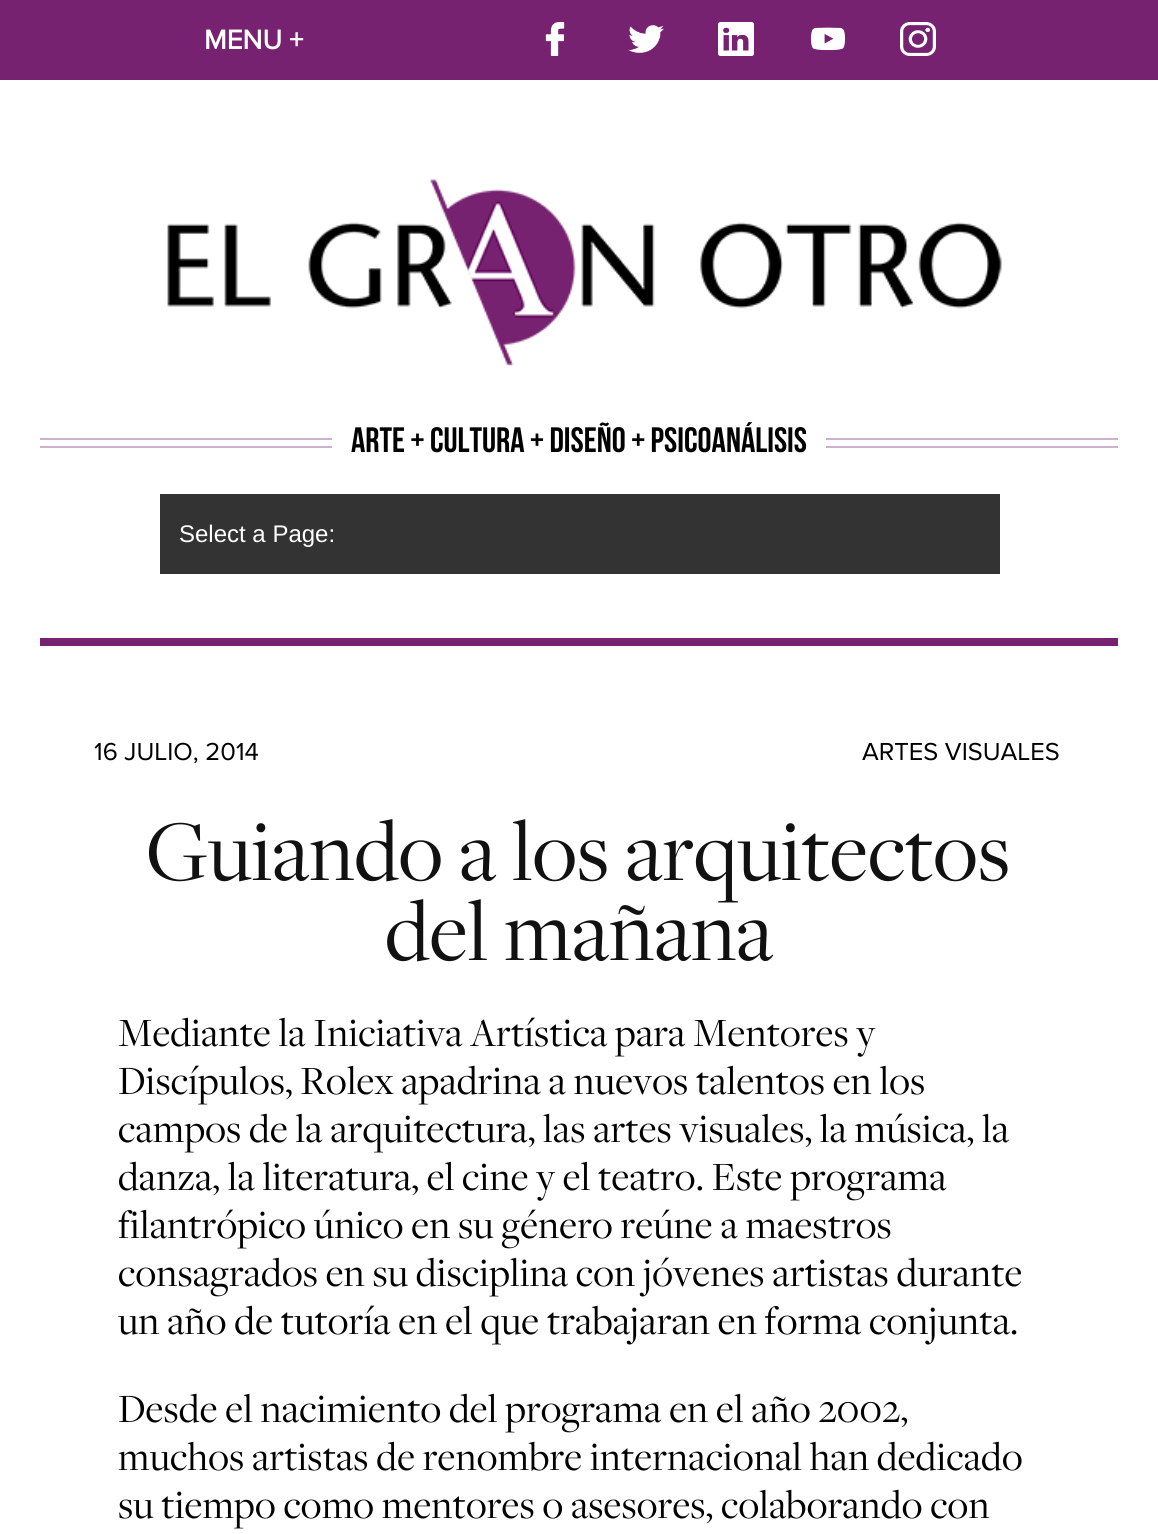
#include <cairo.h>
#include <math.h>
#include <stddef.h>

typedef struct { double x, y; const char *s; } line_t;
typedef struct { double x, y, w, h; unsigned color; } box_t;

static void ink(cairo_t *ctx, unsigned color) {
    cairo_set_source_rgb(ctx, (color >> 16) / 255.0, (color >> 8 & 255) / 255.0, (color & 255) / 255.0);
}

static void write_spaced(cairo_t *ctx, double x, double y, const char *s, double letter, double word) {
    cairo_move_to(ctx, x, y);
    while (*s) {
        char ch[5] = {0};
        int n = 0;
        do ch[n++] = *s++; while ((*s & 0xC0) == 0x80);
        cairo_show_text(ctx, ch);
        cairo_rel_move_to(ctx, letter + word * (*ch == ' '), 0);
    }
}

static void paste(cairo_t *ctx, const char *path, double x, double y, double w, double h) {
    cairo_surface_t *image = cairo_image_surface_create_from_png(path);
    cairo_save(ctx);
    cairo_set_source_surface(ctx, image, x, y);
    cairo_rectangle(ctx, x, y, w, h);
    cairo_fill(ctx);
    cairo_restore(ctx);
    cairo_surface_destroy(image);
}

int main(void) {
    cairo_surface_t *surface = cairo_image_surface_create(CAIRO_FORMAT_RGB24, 1158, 1534);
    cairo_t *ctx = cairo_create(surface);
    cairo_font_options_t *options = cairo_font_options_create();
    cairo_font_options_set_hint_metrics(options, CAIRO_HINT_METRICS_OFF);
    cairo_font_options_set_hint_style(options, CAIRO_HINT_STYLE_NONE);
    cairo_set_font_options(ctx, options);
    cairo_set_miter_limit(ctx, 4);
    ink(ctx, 0xFFFFFF);
    cairo_paint(ctx);
    ink(ctx, 0x762270);
    cairo_rectangle(ctx, 0, 0, 1158, 80);
    cairo_fill(ctx);
    cairo_select_font_face(ctx, "Proxima Nova", CAIRO_FONT_SLANT_NORMAL, CAIRO_FONT_WEIGHT_BOLD);
    cairo_set_font_size(ctx, 28);
    ink(ctx, 0xFFFFFF);
    cairo_move_to(ctx, 204, 49);
    cairo_show_text(ctx, "MENU +");
    paste(ctx, "media/1.png", 545, 22, 20, 34);
    paste(ctx, "media/2.png", 628, 25, 36, 28);
    paste(ctx, "media/3.png", 718, 22, 36, 34);
    paste(ctx, "media/4.png", 810, 27, 36, 24);
    paste(ctx, "media/5.png", 900, 22, 36, 34);
    paste(ctx, "media/6.png", 167, 179, 835, 187);
    ink(ctx, 0xCCB0CC);
    cairo_rectangle(ctx, 40, 438, 292, 2);
    cairo_fill(ctx);
    cairo_rectangle(ctx, 40, 446, 292, 2);
    cairo_fill(ctx);
    cairo_select_font_face(ctx, "Bebas Neue", CAIRO_FONT_SLANT_NORMAL, CAIRO_FONT_WEIGHT_BOLD);
    cairo_set_font_size(ctx, 35.25);
    ink(ctx, 0x000000);
    cairo_move_to(ctx, 351, 452);
    cairo_show_text(ctx, "ARTE + CULTURA + DISEÑO + PSICOANÁLISIS");
    {
        static const box_t items[] = {
            {826, 438, 292, 2, 0xCCB0CC},
            {826, 446, 292, 2, 0xCCB0CC},
            {160, 494, 840, 80, 0x333333},
        };
        for (size_t i = 0; i < sizeof items / sizeof *items; i++) {
            ink(ctx, items[i].color);
            cairo_rectangle(ctx, items[i].x, items[i].y, items[i].w, items[i].h);
            cairo_fill(ctx);
        }
    }
    cairo_select_font_face(ctx, "Liberation Sans", CAIRO_FONT_SLANT_NORMAL, CAIRO_FONT_WEIGHT_NORMAL);
    cairo_set_font_size(ctx, 24);
    ink(ctx, 0xFFFFFF);
    cairo_move_to(ctx, 179, 542);
    cairo_show_text(ctx, "Select a Page:");
    ink(ctx, 0x762270);
    cairo_rectangle(ctx, 40, 638, 1078, 8);
    cairo_fill(ctx);
    cairo_select_font_face(ctx, "Proxima Nova", CAIRO_FONT_SLANT_NORMAL, CAIRO_FONT_WEIGHT_NORMAL);
    cairo_set_font_size(ctx, 25.5);
    ink(ctx, 0x000000);
    cairo_move_to(ctx, 94, 760);
    cairo_show_text(ctx, "16 JULIO, 2014");
    cairo_move_to(ctx, 862, 760);
    cairo_show_text(ctx, "ARTES VISUALES");
    cairo_select_font_face(ctx, "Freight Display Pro", CAIRO_FONT_SLANT_NORMAL, CAIRO_FONT_WEIGHT_NORMAL);
    cairo_set_font_size(ctx, 89.5);
    ink(ctx, 0x111111);
    cairo_move_to(ctx, 146, 880);
    cairo_show_text(ctx, "Guiando a los arquitectos");
    cairo_move_to(ctx, 385, 960);
    cairo_show_text(ctx, "del mañana");
    cairo_set_font_size(ctx, 41.6);
    ink(ctx, 0x000000);
    {
        static const line_t items[] = {
            {118, 1046, "Mediante la Iniciativa Artística para Mentores y"},
            {118, 1094, "Discípulos, Rolex apadrina a nuevos talentos en los"},
            {118, 1142, "campos de la arquitectura, las artes visuales, la música, la"},
            {118, 1190, "danza, la literatura, el cine y el teatro. Este programa"},
            {118, 1238, "filantrópico único en su género reúne a maestros"},
            {118, 1286, "consagrados en su disciplina con jóvenes artistas durante"},
            {118, 1334, "un año de tutoría en el que trabajaran en forma conjunta."},
            {118, 1422, "Desde el nacimiento del programa en el año 2002,"},
            {118, 1470, "muchos artistas de renombre internacional han dedicado"},
            {118, 1518, "su tiempo como mentores o asesores, colaborando con"},
        };
        for (size_t i = 0; i < sizeof items / sizeof *items; i++) {
            write_spaced(ctx, items[i].x, items[i].y, items[i].s, 0.2, 0);
        }
    }
    cairo_surface_write_to_png(surface, "image.png");
    cairo_font_options_destroy(options);
    cairo_destroy(ctx);
    cairo_surface_destroy(surface);
    return 0;
}
